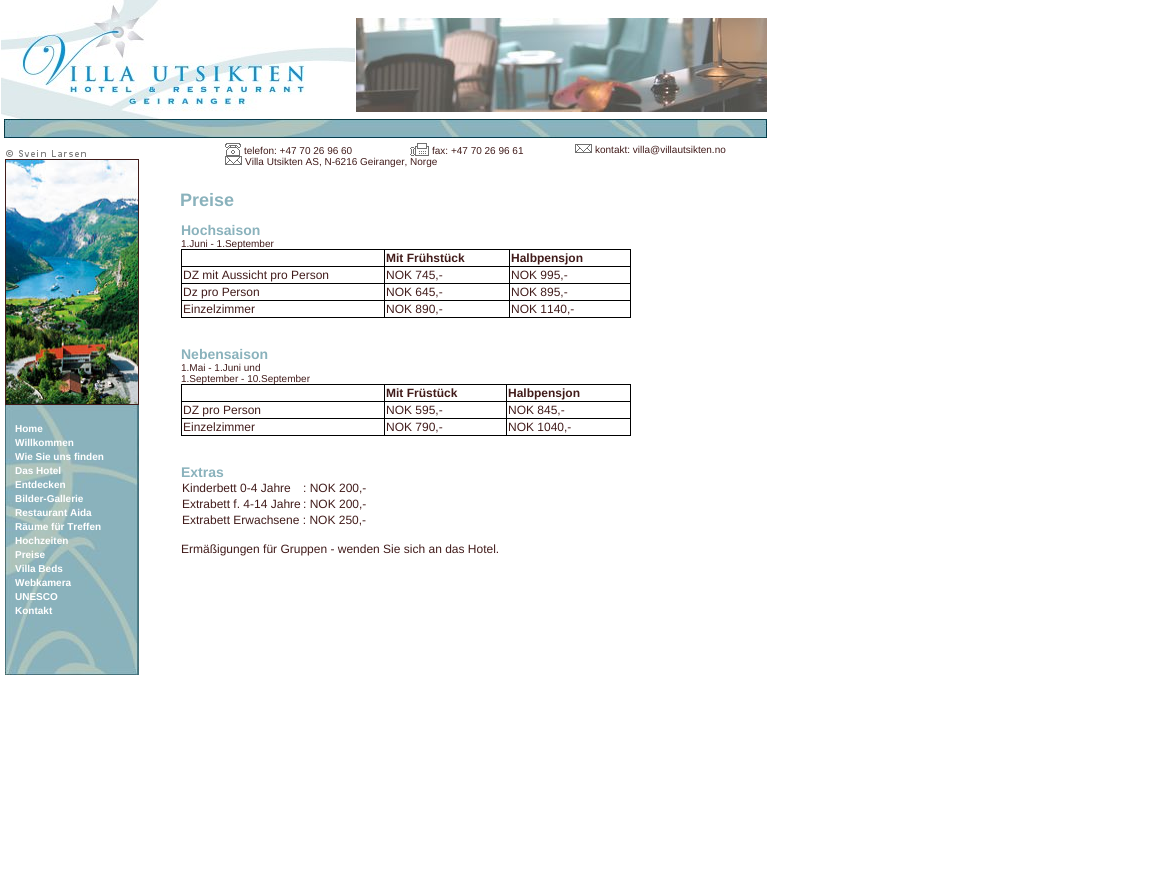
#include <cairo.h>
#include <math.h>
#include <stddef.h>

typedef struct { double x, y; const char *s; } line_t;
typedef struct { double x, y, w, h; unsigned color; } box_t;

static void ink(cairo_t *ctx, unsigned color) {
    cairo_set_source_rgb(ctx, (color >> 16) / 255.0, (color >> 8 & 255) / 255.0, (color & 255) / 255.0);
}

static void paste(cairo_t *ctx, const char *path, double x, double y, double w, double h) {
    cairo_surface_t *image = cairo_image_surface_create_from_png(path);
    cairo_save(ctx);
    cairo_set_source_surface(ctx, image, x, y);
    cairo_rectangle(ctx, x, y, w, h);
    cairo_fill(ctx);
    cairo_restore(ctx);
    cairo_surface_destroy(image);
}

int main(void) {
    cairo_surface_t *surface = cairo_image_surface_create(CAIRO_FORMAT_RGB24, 1170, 870);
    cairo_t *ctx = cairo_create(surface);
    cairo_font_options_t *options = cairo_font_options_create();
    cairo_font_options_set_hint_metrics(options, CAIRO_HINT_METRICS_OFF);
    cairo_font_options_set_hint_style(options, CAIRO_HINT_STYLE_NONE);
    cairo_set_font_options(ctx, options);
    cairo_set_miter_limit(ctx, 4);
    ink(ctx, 0xFFFFFF);
    cairo_paint(ctx);
    paste(ctx, "media/1.png", 1, 0, 354, 119);
    paste(ctx, "media/2.png", 356, 18, 411, 94);
    paste(ctx, "media/3.png", 4, 119, 763, 19);
    paste(ctx, "media/4.png", 6, 150, 80, 7);
    paste(ctx, "media/5.png", 225, 143, 16, 13);
    cairo_select_font_face(ctx, "Liberation Sans", CAIRO_FONT_SLANT_NORMAL, CAIRO_FONT_WEIGHT_NORMAL);
    cairo_set_font_size(ctx, 10);
    ink(ctx, 0x411B1A);
    cairo_move_to(ctx, 244, 154);
    cairo_show_text(ctx, "telefon: +47 70 26 96 60");
    paste(ctx, "media/6.png", 410, 143, 19, 13);
    cairo_move_to(ctx, 432, 154);
    cairo_show_text(ctx, "fax: +47 70 26 96 61");
    paste(ctx, "media/7.png", 575, 144, 17, 9);
    cairo_move_to(ctx, 595, 153);
    cairo_show_text(ctx, "kontakt: villa@villautsikten.no");
    paste(ctx, "media/7.png", 225, 156, 17, 9);
    cairo_move_to(ctx, 245, 165);
    cairo_show_text(ctx, "Villa Utsikten AS, N-6216 Geiranger, Norge");
    cairo_rectangle(ctx, 5.5, 159.5, 133, 245);
    cairo_set_line_width(ctx, 1);
    cairo_stroke(ctx);
    paste(ctx, "media/8.png", 6, 160, 132, 244);
    cairo_select_font_face(ctx, "Liberation Sans", CAIRO_FONT_SLANT_NORMAL, CAIRO_FONT_WEIGHT_BOLD);
    cairo_set_font_size(ctx, 18);
    ink(ctx, 0x8AB2BC);
    cairo_move_to(ctx, 180, 206);
    cairo_show_text(ctx, "Preise");
    paste(ctx, "media/9.png", 5, 405, 134, 270);
    cairo_set_font_size(ctx, 14);
    cairo_move_to(ctx, 181, 235);
    cairo_show_text(ctx, "Hochsaison");
    {
        static const box_t items[] = {
            {181, 249, 450, 1, 0x000000},
            {630, 249, 1, 69, 0x000000},
            {181, 317, 450, 1, 0x000000},
            {181, 249, 1, 69, 0x000000},
        };
        for (size_t i = 0; i < sizeof items / sizeof *items; i++) {
            ink(ctx, items[i].color);
            cairo_rectangle(ctx, items[i].x, items[i].y, items[i].w, items[i].h);
            cairo_fill(ctx);
        }
    }
    cairo_select_font_face(ctx, "Liberation Sans", CAIRO_FONT_SLANT_NORMAL, CAIRO_FONT_WEIGHT_NORMAL);
    cairo_set_font_size(ctx, 10);
    ink(ctx, 0x411B1A);
    cairo_move_to(ctx, 181, 247);
    cairo_show_text(ctx, "1.Juni - 1.September");
    {
        static const box_t items[] = {
            {509, 266, 122, 1, 0x000000},
            {509, 283, 122, 1, 0x000000},
            {509, 300, 122, 1, 0x000000},
            {509, 300, 1, 18, 0x000000},
            {384, 300, 126, 1, 0x000000},
            {509, 283, 1, 18, 0x000000},
            {384, 283, 126, 1, 0x000000},
            {509, 266, 1, 18, 0x000000},
            {384, 266, 126, 1, 0x000000},
            {384, 300, 1, 18, 0x000000},
            {181, 300, 204, 1, 0x000000},
            {384, 283, 1, 18, 0x000000},
            {181, 283, 204, 1, 0x000000},
            {384, 266, 1, 18, 0x000000},
            {181, 266, 204, 1, 0x000000},
            {384, 249, 1, 18, 0x000000},
        };
        for (size_t i = 0; i < sizeof items / sizeof *items; i++) {
            ink(ctx, items[i].color);
            cairo_rectangle(ctx, items[i].x, items[i].y, items[i].w, items[i].h);
            cairo_fill(ctx);
        }
    }
    cairo_select_font_face(ctx, "Liberation Sans", CAIRO_FONT_SLANT_NORMAL, CAIRO_FONT_WEIGHT_BOLD);
    cairo_set_font_size(ctx, 12);
    ink(ctx, 0x411B1A);
    cairo_move_to(ctx, 386, 262);
    cairo_show_text(ctx, "Mit Frühstück");
    ink(ctx, 0x000000);
    cairo_rectangle(ctx, 509, 249, 1, 18);
    cairo_fill(ctx);
    ink(ctx, 0x411B1A);
    cairo_move_to(ctx, 511, 262);
    cairo_show_text(ctx, "Halbpensjon");
    cairo_select_font_face(ctx, "Liberation Sans", CAIRO_FONT_SLANT_NORMAL, CAIRO_FONT_WEIGHT_NORMAL);
    {
        static const line_t items[] = {
            {183, 279, "DZ mit Aussicht pro Person"},
            {386, 279, "NOK 745,-"},
            {511, 279, "NOK 995,-"},
            {183, 296, "Dz pro Person"},
            {386, 296, "NOK 645,-"},
            {511, 296, "NOK 895,-"},
            {183, 313, "Einzelzimmer"},
            {386, 313, "NOK 890,-"},
            {511, 313, "NOK 1140,-"},
        };
        for (size_t i = 0; i < sizeof items / sizeof *items; i++) {
            cairo_move_to(ctx, items[i].x, items[i].y);
            cairo_show_text(ctx, items[i].s);
        }
    }
    cairo_select_font_face(ctx, "Liberation Sans", CAIRO_FONT_SLANT_NORMAL, CAIRO_FONT_WEIGHT_BOLD);
    cairo_set_font_size(ctx, 14);
    ink(ctx, 0x8AB2BC);
    cairo_move_to(ctx, 181, 359);
    cairo_show_text(ctx, "Nebensaison");
    cairo_select_font_face(ctx, "Liberation Sans", CAIRO_FONT_SLANT_NORMAL, CAIRO_FONT_WEIGHT_NORMAL);
    cairo_set_font_size(ctx, 10);
    ink(ctx, 0x411B1A);
    cairo_move_to(ctx, 181, 371);
    cairo_show_text(ctx, "1.Mai - 1.Juni und");
    {
        static const box_t items[] = {
            {181, 384, 450, 1, 0x000000},
            {630, 384, 1, 52, 0x000000},
            {181, 435, 450, 1, 0x000000},
            {181, 384, 1, 52, 0x000000},
        };
        for (size_t i = 0; i < sizeof items / sizeof *items; i++) {
            ink(ctx, items[i].color);
            cairo_rectangle(ctx, items[i].x, items[i].y, items[i].w, items[i].h);
            cairo_fill(ctx);
        }
    }
    ink(ctx, 0x411B1A);
    cairo_move_to(ctx, 181, 382);
    cairo_show_text(ctx, "1.September - 10.September");
    {
        static const box_t items[] = {
            {506, 401, 125, 1, 0x000000},
            {506, 418, 125, 1, 0x000000},
            {506, 418, 1, 18, 0x000000},
            {384, 418, 123, 1, 0x000000},
            {506, 401, 1, 18, 0x000000},
            {384, 401, 123, 1, 0x000000},
            {384, 418, 1, 18, 0x000000},
            {181, 418, 204, 1, 0x000000},
            {384, 401, 1, 18, 0x000000},
            {181, 401, 204, 1, 0x000000},
            {384, 384, 1, 18, 0x000000},
        };
        for (size_t i = 0; i < sizeof items / sizeof *items; i++) {
            ink(ctx, items[i].color);
            cairo_rectangle(ctx, items[i].x, items[i].y, items[i].w, items[i].h);
            cairo_fill(ctx);
        }
    }
    cairo_select_font_face(ctx, "Liberation Sans", CAIRO_FONT_SLANT_NORMAL, CAIRO_FONT_WEIGHT_BOLD);
    cairo_set_font_size(ctx, 12);
    ink(ctx, 0x411B1A);
    cairo_move_to(ctx, 386, 397);
    cairo_show_text(ctx, "Mit Früstück");
    ink(ctx, 0x000000);
    cairo_rectangle(ctx, 506, 384, 1, 18);
    cairo_fill(ctx);
    ink(ctx, 0x411B1A);
    cairo_move_to(ctx, 508, 397);
    cairo_show_text(ctx, "Halbpensjon");
    cairo_select_font_face(ctx, "Liberation Sans", CAIRO_FONT_SLANT_NORMAL, CAIRO_FONT_WEIGHT_NORMAL);
    {
        static const line_t items[] = {
            {183, 414, "DZ pro Person"},
            {386, 414, "NOK 595,-"},
            {508, 414, "NOK 845,-"},
            {183, 431, "Einzelzimmer"},
            {386, 431, "NOK 790,-"},
            {508, 431, "NOK 1040,-"},
        };
        for (size_t i = 0; i < sizeof items / sizeof *items; i++) {
            cairo_move_to(ctx, items[i].x, items[i].y);
            cairo_show_text(ctx, items[i].s);
        }
    }
    cairo_select_font_face(ctx, "Liberation Sans", CAIRO_FONT_SLANT_NORMAL, CAIRO_FONT_WEIGHT_BOLD);
    cairo_set_font_size(ctx, 14);
    ink(ctx, 0x8AB2BC);
    cairo_move_to(ctx, 181, 477);
    cairo_show_text(ctx, "Extras");
    cairo_select_font_face(ctx, "Liberation Sans", CAIRO_FONT_SLANT_NORMAL, CAIRO_FONT_WEIGHT_NORMAL);
    cairo_set_font_size(ctx, 12);
    ink(ctx, 0x411B1A);
    {
        static const line_t items[] = {
            {182, 492, "Kinderbett 0-4 Jahre"},
            {303, 492, ": NOK 200,-"},
            {182, 508, "Extrabett f. 4-14 Jahre"},
            {303, 508, ": NOK 200,-"},
            {182, 524, "Extrabett Erwachsene : NOK 250,-"},
            {181, 553, "Ermäßigungen für Gruppen - wenden Sie sich an das Hotel."},
        };
        for (size_t i = 0; i < sizeof items / sizeof *items; i++) {
            cairo_move_to(ctx, items[i].x, items[i].y);
            cairo_show_text(ctx, items[i].s);
        }
    }
    cairo_select_font_face(ctx, "Liberation Sans", CAIRO_FONT_SLANT_NORMAL, CAIRO_FONT_WEIGHT_BOLD);
    cairo_set_font_size(ctx, 10);
    ink(ctx, 0xFFFFFF);
    {
        static const line_t items[] = {
            {15, 432, "Home"},
            {15, 446, "Willkommen"},
            {15, 460, "Wie Sie uns finden"},
            {15, 474, "Das Hotel"},
            {15, 488, "Entdecken"},
            {15, 502, "Bilder-Gallerie"},
            {15, 516, "Restaurant Aida"},
            {15, 530, "Räume für Treffen"},
            {15, 544, "Hochzeiten"},
            {15, 558, "Preise"},
            {15, 572, "Villa Beds"},
            {15, 586, "Webkamera"},
            {15, 600, "UNESCO"},
            {15, 614, "Kontakt"},
        };
        for (size_t i = 0; i < sizeof items / sizeof *items; i++) {
            cairo_move_to(ctx, items[i].x, items[i].y);
            cairo_show_text(ctx, items[i].s);
        }
    }
    cairo_surface_write_to_png(surface, "image.png");
    cairo_font_options_destroy(options);
    cairo_destroy(ctx);
    cairo_surface_destroy(surface);
    return 0;
}
